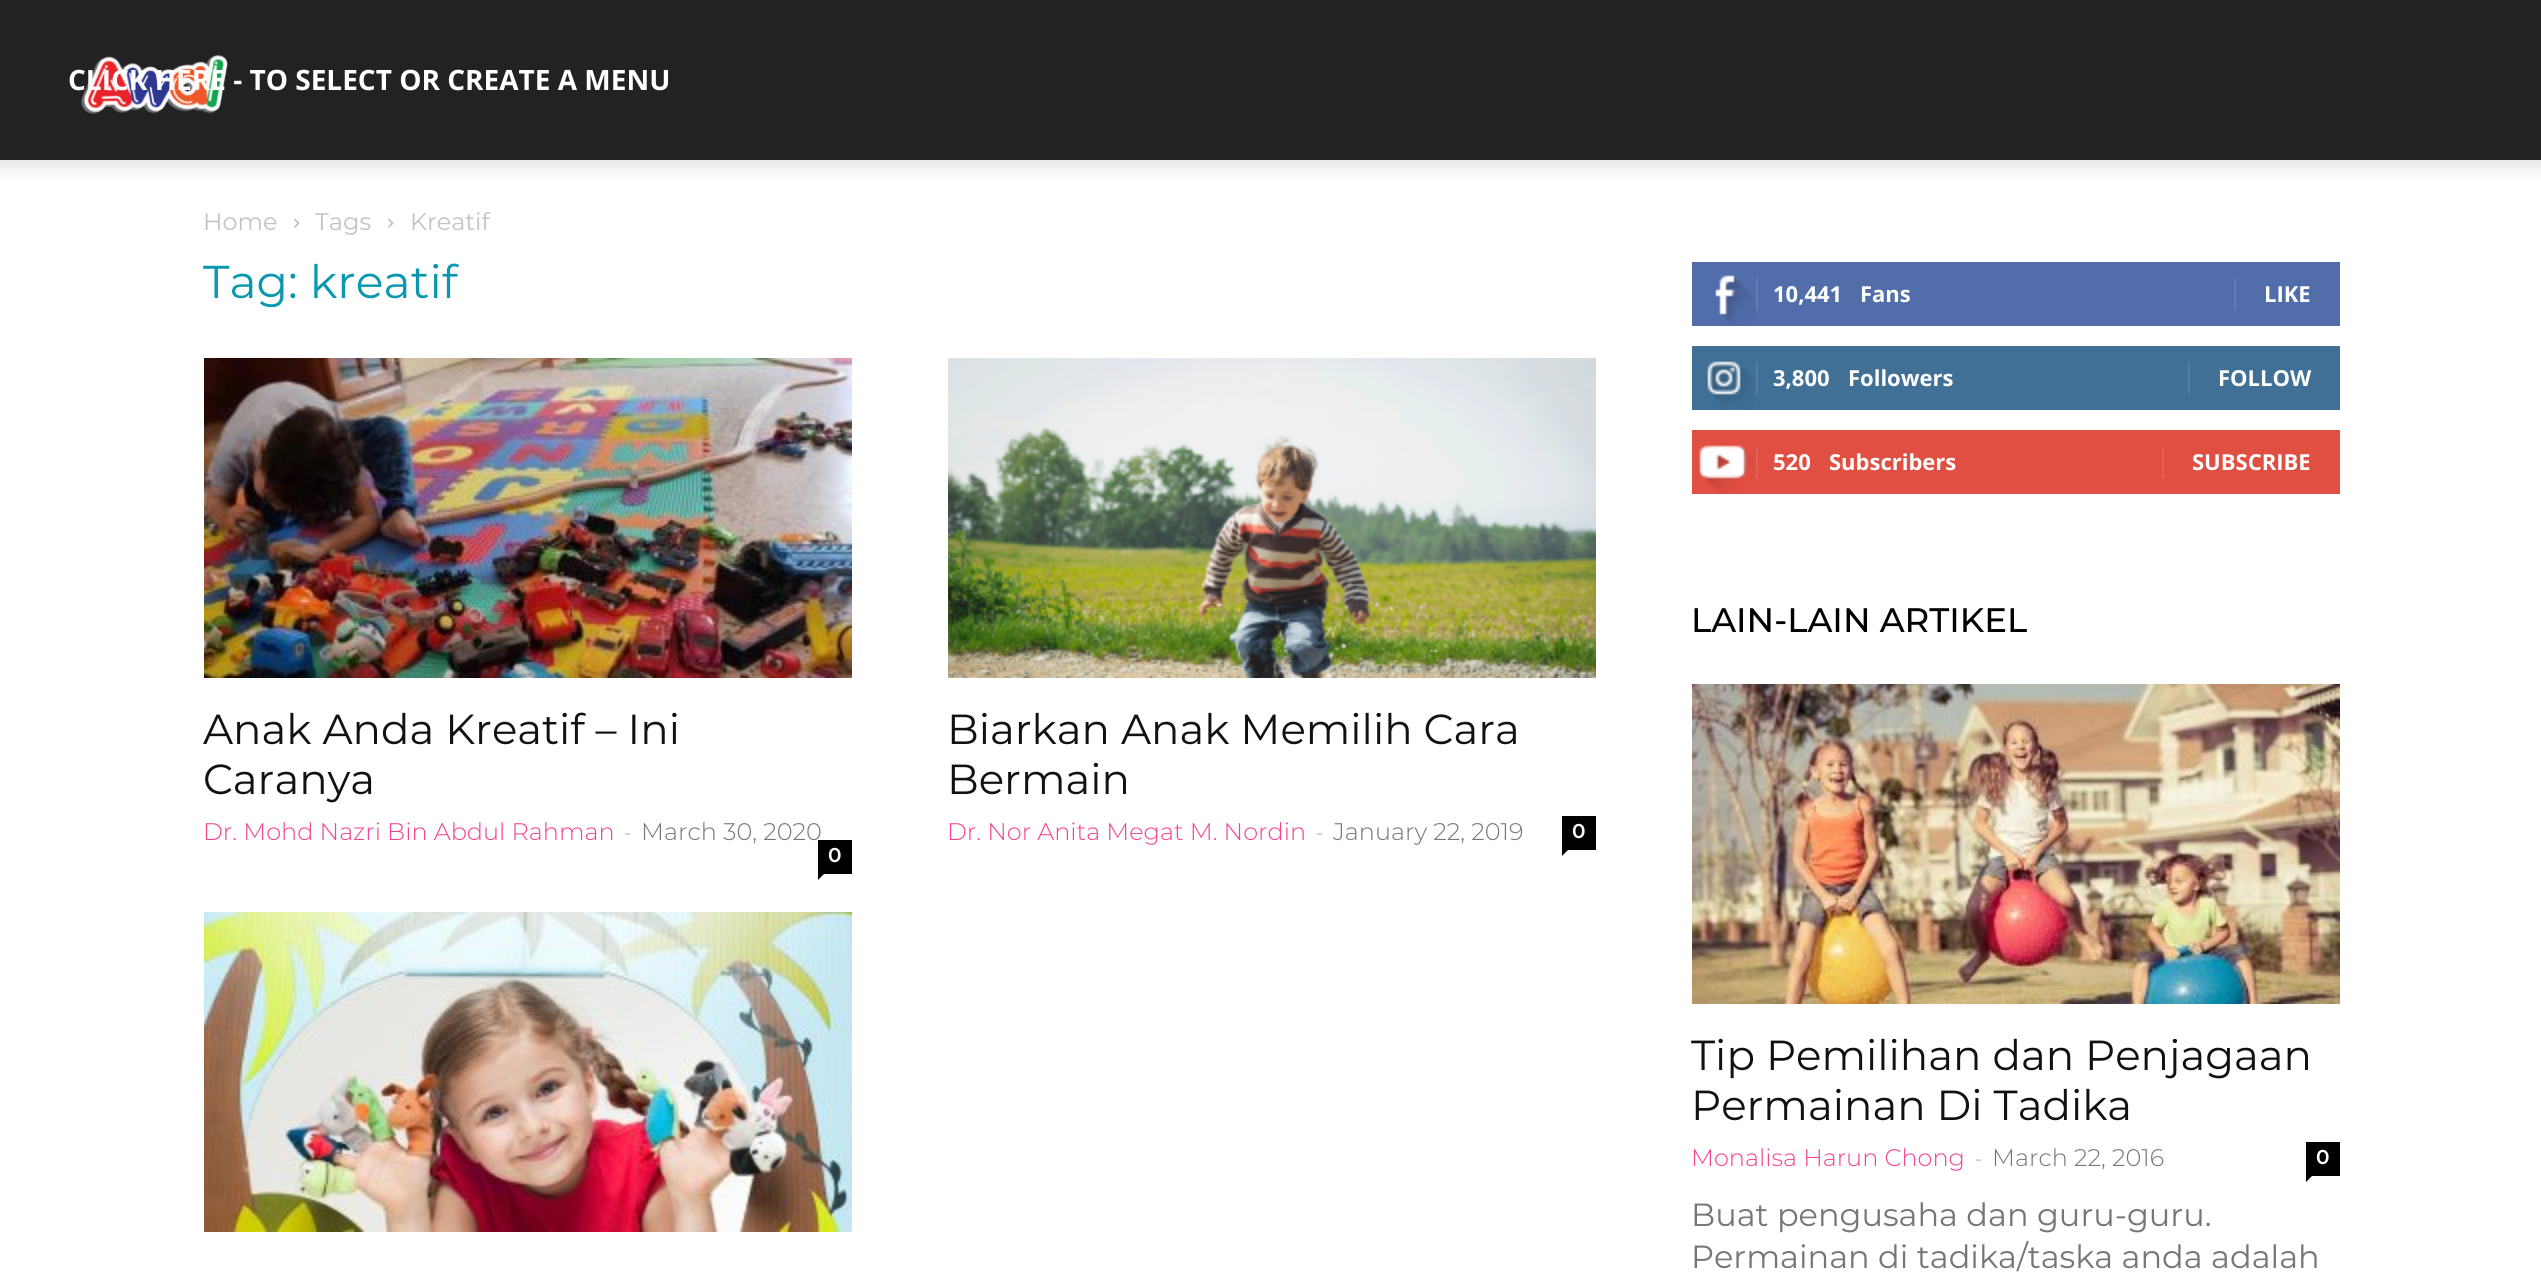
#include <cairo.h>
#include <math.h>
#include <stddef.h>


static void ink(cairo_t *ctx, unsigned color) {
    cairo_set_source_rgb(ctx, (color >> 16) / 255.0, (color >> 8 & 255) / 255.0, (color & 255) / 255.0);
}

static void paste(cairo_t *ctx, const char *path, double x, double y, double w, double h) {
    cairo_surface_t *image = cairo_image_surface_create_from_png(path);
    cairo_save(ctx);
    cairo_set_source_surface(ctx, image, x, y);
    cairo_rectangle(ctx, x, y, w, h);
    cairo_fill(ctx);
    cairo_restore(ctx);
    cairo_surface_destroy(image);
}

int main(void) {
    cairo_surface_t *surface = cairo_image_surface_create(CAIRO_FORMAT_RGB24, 2541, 1273);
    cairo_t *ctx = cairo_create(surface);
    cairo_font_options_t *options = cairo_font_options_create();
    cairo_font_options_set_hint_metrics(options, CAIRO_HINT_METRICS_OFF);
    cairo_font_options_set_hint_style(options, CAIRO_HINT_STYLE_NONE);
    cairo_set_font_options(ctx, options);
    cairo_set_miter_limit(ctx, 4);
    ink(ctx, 0xFFFFFF);
    cairo_paint(ctx);
    ink(ctx, 0x222222);
    cairo_rectangle(ctx, 0, 0, 2541, 160);
    cairo_fill(ctx);
    paste(ctx, "media/1.png", 81, 55, 147, 59);
    cairo_select_font_face(ctx, "Open Sans", CAIRO_FONT_SLANT_NORMAL, CAIRO_FONT_WEIGHT_BOLD);
    cairo_set_font_size(ctx, 28);
    ink(ctx, 0xFFFFFF);
    cairo_move_to(ctx, 68, 90);
    cairo_show_text(ctx, "CLICK HERE - TO SELECT OR CREATE A MENU");
    paste(ctx, "media/2.png", 0, 160, 2541, 17);
    cairo_select_font_face(ctx, "Montserrat", CAIRO_FONT_SLANT_NORMAL, CAIRO_FONT_WEIGHT_NORMAL);
    cairo_set_font_size(ctx, 24);
    ink(ctx, 0xC3C3C3);
    cairo_move_to(ctx, 203, 230);
    cairo_show_text(ctx, "Home");
    paste(ctx, "media/3.png", 294, 218, 6, 10);
    cairo_move_to(ctx, 315, 230);
    cairo_show_text(ctx, "Tags");
    paste(ctx, "media/3.png", 388, 218, 6, 10);
    cairo_move_to(ctx, 410, 230);
    cairo_show_text(ctx, "Kreatif");
    cairo_set_font_size(ctx, 46);
    ink(ctx, 0x0A97B0);
    cairo_move_to(ctx, 203, 298);
    cairo_show_text(ctx, "Tag: kreatif");
    paste(ctx, "media/4.png", 204, 358, 648, 320);
    cairo_set_font_size(ctx, 42);
    ink(ctx, 0x111111);
    cairo_move_to(ctx, 203, 744);
    cairo_show_text(ctx, "Anak Anda Kreatif – Ini");
    cairo_move_to(ctx, 203, 794);
    cairo_show_text(ctx, "Caranya");
    cairo_select_font_face(ctx, "Montserrat Light", CAIRO_FONT_SLANT_NORMAL, CAIRO_FONT_WEIGHT_NORMAL);
    cairo_set_font_size(ctx, 24);
    ink(ctx, 0xF54291);
    cairo_move_to(ctx, 203, 840);
    cairo_show_text(ctx, "Dr. Mohd Nazri Bin Abdul Rahman");
    cairo_select_font_face(ctx, "Open Sans", CAIRO_FONT_SLANT_NORMAL, CAIRO_FONT_WEIGHT_NORMAL);
    cairo_set_font_size(ctx, 22);
    ink(ctx, 0xCCCCCC);
    cairo_move_to(ctx, 624, 840);
    cairo_show_text(ctx, "-");
    cairo_select_font_face(ctx, "Montserrat Light", CAIRO_FONT_SLANT_NORMAL, CAIRO_FONT_WEIGHT_NORMAL);
    cairo_set_font_size(ctx, 24);
    ink(ctx, 0x767676);
    cairo_move_to(ctx, 641, 840);
    cairo_show_text(ctx, "March 30, 2020");
    ink(ctx, 0x000000);
    cairo_rectangle(ctx, 818, 840, 34, 34);
    cairo_fill(ctx);
    cairo_select_font_face(ctx, "Montserrat SemiBold", CAIRO_FONT_SLANT_NORMAL, CAIRO_FONT_WEIGHT_NORMAL);
    cairo_set_font_size(ctx, 20);
    ink(ctx, 0xFFFFFF);
    cairo_move_to(ctx, 828, 862);
    cairo_show_text(ctx, "0");
    ink(ctx, 0x000000);
    cairo_new_path(ctx);
    cairo_move_to(ctx, 818, 874);
    cairo_line_to(ctx, 824, 874);
    cairo_line_to(ctx, 818, 880);
    cairo_close_path(ctx);
    cairo_fill(ctx);
    paste(ctx, "media/5.png", 948, 358, 648, 320);
    cairo_select_font_face(ctx, "Montserrat", CAIRO_FONT_SLANT_NORMAL, CAIRO_FONT_WEIGHT_NORMAL);
    cairo_set_font_size(ctx, 42);
    ink(ctx, 0x111111);
    cairo_move_to(ctx, 947, 744);
    cairo_show_text(ctx, "Biarkan Anak Memilih Cara");
    cairo_move_to(ctx, 947, 794);
    cairo_show_text(ctx, "Bermain");
    cairo_select_font_face(ctx, "Montserrat Light", CAIRO_FONT_SLANT_NORMAL, CAIRO_FONT_WEIGHT_NORMAL);
    cairo_set_font_size(ctx, 24);
    ink(ctx, 0xF54291);
    cairo_move_to(ctx, 947, 840);
    cairo_show_text(ctx, "Dr. Nor Anita Megat M. Nordin");
    cairo_select_font_face(ctx, "Open Sans", CAIRO_FONT_SLANT_NORMAL, CAIRO_FONT_WEIGHT_NORMAL);
    cairo_set_font_size(ctx, 22);
    ink(ctx, 0xCCCCCC);
    cairo_move_to(ctx, 1316, 840);
    cairo_show_text(ctx, "-");
    cairo_select_font_face(ctx, "Montserrat Light", CAIRO_FONT_SLANT_NORMAL, CAIRO_FONT_WEIGHT_NORMAL);
    cairo_set_font_size(ctx, 24);
    ink(ctx, 0x767676);
    cairo_move_to(ctx, 1333, 840);
    cairo_show_text(ctx, "January 22, 2019");
    ink(ctx, 0x000000);
    cairo_rectangle(ctx, 1562, 816, 34, 34);
    cairo_fill(ctx);
    cairo_select_font_face(ctx, "Montserrat SemiBold", CAIRO_FONT_SLANT_NORMAL, CAIRO_FONT_WEIGHT_NORMAL);
    cairo_set_font_size(ctx, 20);
    ink(ctx, 0xFFFFFF);
    cairo_move_to(ctx, 1572, 838);
    cairo_show_text(ctx, "0");
    ink(ctx, 0x000000);
    cairo_new_path(ctx);
    cairo_move_to(ctx, 1562, 850);
    cairo_line_to(ctx, 1568, 850);
    cairo_line_to(ctx, 1562, 856);
    cairo_close_path(ctx);
    cairo_fill(ctx);
    paste(ctx, "media/6.png", 204, 912, 648, 320);
    ink(ctx, 0x516EAB);
    cairo_rectangle(ctx, 1692, 262, 648, 64);
    cairo_fill(ctx);
    paste(ctx, "media/7.png", 1715, 275, 41, 51);
    ink(ctx, 0x627DB3);
    cairo_rectangle(ctx, 1756, 278, 2, 32);
    cairo_fill(ctx);
    cairo_select_font_face(ctx, "Open Sans", CAIRO_FONT_SLANT_NORMAL, CAIRO_FONT_WEIGHT_BOLD);
    cairo_set_font_size(ctx, 22);
    ink(ctx, 0xFFFFFF);
    cairo_move_to(ctx, 1773, 302);
    cairo_show_text(ctx, "10,441");
    cairo_move_to(ctx, 1860, 302);
    cairo_show_text(ctx, "Fans");
    ink(ctx, 0x627DB3);
    cairo_rectangle(ctx, 2234, 278, 2, 32);
    cairo_fill(ctx);
    ink(ctx, 0xFFFFFF);
    cairo_move_to(ctx, 2264, 302);
    cairo_show_text(ctx, "LIKE");
    ink(ctx, 0x417096);
    cairo_rectangle(ctx, 1692, 346, 648, 64);
    cairo_fill(ctx);
    paste(ctx, "media/8.png", 1707, 361, 48, 48);
    ink(ctx, 0x547EA1);
    cairo_rectangle(ctx, 1756, 362, 2, 32);
    cairo_fill(ctx);
    ink(ctx, 0xFFFFFF);
    cairo_move_to(ctx, 1773, 386);
    cairo_show_text(ctx, "3,800");
    cairo_move_to(ctx, 1848, 386);
    cairo_show_text(ctx, "Followers");
    ink(ctx, 0x547EA1);
    cairo_rectangle(ctx, 2188, 362, 2, 32);
    cairo_fill(ctx);
    ink(ctx, 0xFFFFFF);
    cairo_move_to(ctx, 2218, 386);
    cairo_show_text(ctx, "FOLLOW");
    ink(ctx, 0xE14E42);
    cairo_rectangle(ctx, 1692, 430, 648, 64);
    cairo_fill(ctx);
    paste(ctx, "media/9.png", 1699, 445, 55, 48);
    ink(ctx, 0xE46055);
    cairo_rectangle(ctx, 1756, 446, 2, 32);
    cairo_fill(ctx);
    ink(ctx, 0xFFFFFF);
    cairo_move_to(ctx, 1773, 470);
    cairo_show_text(ctx, "520");
    cairo_move_to(ctx, 1829, 470);
    cairo_show_text(ctx, "Subscribers");
    ink(ctx, 0xE46055);
    cairo_rectangle(ctx, 2162, 446, 2, 32);
    cairo_fill(ctx);
    ink(ctx, 0xFFFFFF);
    cairo_move_to(ctx, 2192, 470);
    cairo_show_text(ctx, "SUBSCRIBE");
    cairo_select_font_face(ctx, "Montserrat Medium", CAIRO_FONT_SLANT_NORMAL, CAIRO_FONT_WEIGHT_NORMAL);
    cairo_set_font_size(ctx, 34);
    ink(ctx, 0x000000);
    cairo_move_to(ctx, 1691, 632);
    cairo_show_text(ctx, "LAIN-LAIN ARTIKEL");
    paste(ctx, "media/10.png", 1692, 684, 648, 320);
    cairo_select_font_face(ctx, "Montserrat", CAIRO_FONT_SLANT_NORMAL, CAIRO_FONT_WEIGHT_NORMAL);
    cairo_set_font_size(ctx, 42);
    ink(ctx, 0x111111);
    cairo_move_to(ctx, 1691, 1070);
    cairo_show_text(ctx, "Tip Pemilihan dan Penjagaan");
    cairo_move_to(ctx, 1691, 1120);
    cairo_show_text(ctx, "Permainan Di Tadika");
    cairo_select_font_face(ctx, "Montserrat Light", CAIRO_FONT_SLANT_NORMAL, CAIRO_FONT_WEIGHT_NORMAL);
    cairo_set_font_size(ctx, 24);
    ink(ctx, 0xF54291);
    cairo_move_to(ctx, 1691, 1166);
    cairo_show_text(ctx, "Monalisa Harun Chong");
    cairo_select_font_face(ctx, "Open Sans", CAIRO_FONT_SLANT_NORMAL, CAIRO_FONT_WEIGHT_NORMAL);
    cairo_set_font_size(ctx, 22);
    ink(ctx, 0xCCCCCC);
    cairo_move_to(ctx, 1975, 1166);
    cairo_show_text(ctx, "-");
    cairo_select_font_face(ctx, "Montserrat Light", CAIRO_FONT_SLANT_NORMAL, CAIRO_FONT_WEIGHT_NORMAL);
    cairo_set_font_size(ctx, 24);
    ink(ctx, 0x767676);
    cairo_move_to(ctx, 1992, 1166);
    cairo_show_text(ctx, "March 22, 2016");
    ink(ctx, 0x000000);
    cairo_rectangle(ctx, 2306, 1142, 34, 34);
    cairo_fill(ctx);
    cairo_select_font_face(ctx, "Montserrat SemiBold", CAIRO_FONT_SLANT_NORMAL, CAIRO_FONT_WEIGHT_NORMAL);
    cairo_set_font_size(ctx, 20);
    ink(ctx, 0xFFFFFF);
    cairo_move_to(ctx, 2316, 1164);
    cairo_show_text(ctx, "0");
    ink(ctx, 0x000000);
    cairo_new_path(ctx);
    cairo_move_to(ctx, 2306, 1176);
    cairo_line_to(ctx, 2312, 1176);
    cairo_line_to(ctx, 2306, 1182);
    cairo_close_path(ctx);
    cairo_fill(ctx);
    cairo_select_font_face(ctx, "Montserrat", CAIRO_FONT_SLANT_NORMAL, CAIRO_FONT_WEIGHT_NORMAL);
    cairo_set_font_size(ctx, 32);
    ink(ctx, 0x767676);
    cairo_move_to(ctx, 1691, 1226);
    cairo_show_text(ctx, "Buat pengusaha dan guru-guru.");
    cairo_move_to(ctx, 1691, 1268);
    cairo_show_text(ctx, "Permainan di tadika/taska anda adalah");
    cairo_surface_write_to_png(surface, "image.png");
    cairo_font_options_destroy(options);
    cairo_destroy(ctx);
    cairo_surface_destroy(surface);
    return 0;
}
